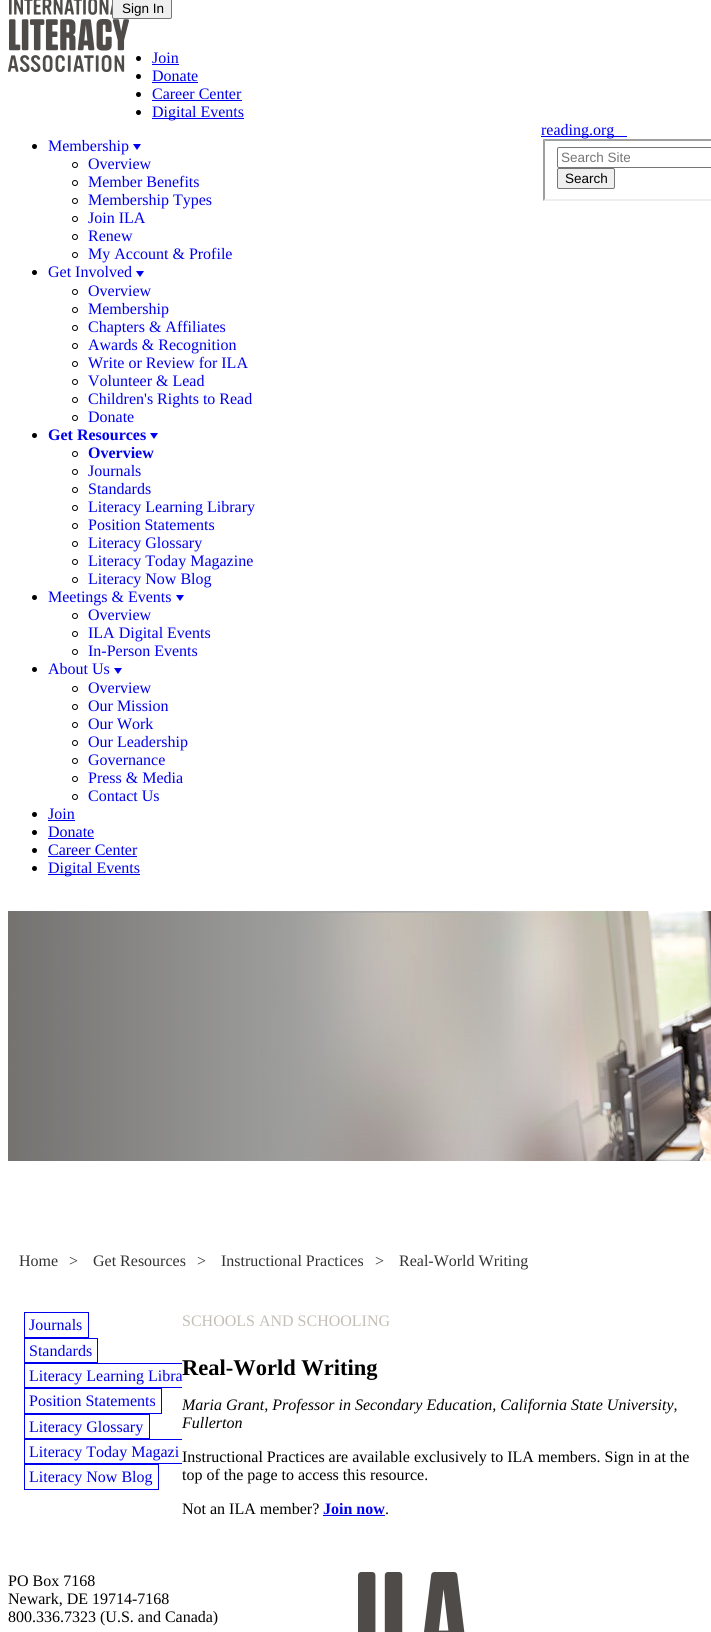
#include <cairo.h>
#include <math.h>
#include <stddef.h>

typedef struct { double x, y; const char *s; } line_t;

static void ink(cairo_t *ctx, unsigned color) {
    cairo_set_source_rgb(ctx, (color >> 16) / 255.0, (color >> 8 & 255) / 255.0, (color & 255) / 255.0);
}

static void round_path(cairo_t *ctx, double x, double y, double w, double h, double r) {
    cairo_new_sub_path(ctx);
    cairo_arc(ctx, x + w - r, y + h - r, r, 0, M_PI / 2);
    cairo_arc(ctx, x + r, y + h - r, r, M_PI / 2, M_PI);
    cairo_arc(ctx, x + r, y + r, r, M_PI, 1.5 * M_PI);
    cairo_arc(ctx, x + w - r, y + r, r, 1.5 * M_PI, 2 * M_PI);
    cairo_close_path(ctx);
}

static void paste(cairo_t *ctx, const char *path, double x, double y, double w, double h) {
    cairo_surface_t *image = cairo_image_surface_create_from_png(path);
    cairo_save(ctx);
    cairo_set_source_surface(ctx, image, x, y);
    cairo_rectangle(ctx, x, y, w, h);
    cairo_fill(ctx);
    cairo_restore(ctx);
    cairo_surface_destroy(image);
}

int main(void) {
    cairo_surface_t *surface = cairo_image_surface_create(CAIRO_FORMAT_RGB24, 711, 1632);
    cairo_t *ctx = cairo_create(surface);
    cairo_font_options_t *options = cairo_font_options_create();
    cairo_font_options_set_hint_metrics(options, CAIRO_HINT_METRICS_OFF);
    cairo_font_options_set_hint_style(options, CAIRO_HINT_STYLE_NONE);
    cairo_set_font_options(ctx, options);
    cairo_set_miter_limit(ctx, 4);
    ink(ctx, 0xFFFFFF);
    cairo_paint(ctx);
    paste(ctx, "media/1.png", 8, 0, 121, 72);
    ink(ctx, 0xEFEFEF);
    round_path(ctx, 112.5, -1.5, 59, 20, 1.5);
    cairo_fill_preserve(ctx);
    ink(ctx, 0x767676);
    cairo_set_line_width(ctx, 1);
    cairo_stroke(ctx);
    cairo_select_font_face(ctx, "Liberation Sans", CAIRO_FONT_SLANT_NORMAL, CAIRO_FONT_WEIGHT_NORMAL);
    cairo_set_font_size(ctx, 13.5);
    ink(ctx, 0x000000);
    cairo_move_to(ctx, 122, 13);
    cairo_show_text(ctx, "Sign In");
    cairo_new_path(ctx);
    cairo_arc(ctx, 138.5, 58.5, 2.5, 0, 2 * M_PI);
    cairo_fill(ctx);
    cairo_select_font_face(ctx, "Liberation Serif", CAIRO_FONT_SLANT_NORMAL, CAIRO_FONT_WEIGHT_NORMAL);
    cairo_set_font_size(ctx, 16);
    ink(ctx, 0x0000EE);
    cairo_move_to(ctx, 152, 63);
    cairo_show_text(ctx, "Join");
    cairo_rectangle(ctx, 152, 64, 27, 1);
    cairo_fill(ctx);
    ink(ctx, 0x000000);
    cairo_arc(ctx, 138.5, 76.5, 2.5, 0, 2 * M_PI);
    cairo_fill(ctx);
    ink(ctx, 0x0000EE);
    cairo_move_to(ctx, 152, 81);
    cairo_show_text(ctx, "Donate");
    cairo_rectangle(ctx, 152, 82, 46, 1);
    cairo_fill(ctx);
    ink(ctx, 0x000000);
    cairo_arc(ctx, 138.5, 94.5, 2.5, 0, 2 * M_PI);
    cairo_fill(ctx);
    ink(ctx, 0x0000EE);
    cairo_move_to(ctx, 152, 99);
    cairo_show_text(ctx, "Career Center");
    cairo_rectangle(ctx, 152, 100, 90, 1);
    cairo_fill(ctx);
    ink(ctx, 0x000000);
    cairo_arc(ctx, 138.5, 112.5, 2.5, 0, 2 * M_PI);
    cairo_fill(ctx);
    ink(ctx, 0x0000EE);
    cairo_rectangle(ctx, 152, 118, 92, 1);
    cairo_fill(ctx);
    cairo_move_to(ctx, 152, 117);
    cairo_show_text(ctx, "Digital Events");
    ink(ctx, 0x000000);
    cairo_new_path(ctx);
    cairo_arc(ctx, 34.5, 146.5, 2.5, 0, 2 * M_PI);
    cairo_fill(ctx);
    ink(ctx, 0x0000EE);
    cairo_move_to(ctx, 48, 151);
    cairo_show_text(ctx, "Membership");
    cairo_new_path(ctx);
    cairo_move_to(ctx, 137, 150);
    cairo_line_to(ctx, 133, 144);
    cairo_line_to(ctx, 141, 144);
    cairo_close_path(ctx);
    cairo_fill(ctx);
    cairo_arc(ctx, 75, 165, 2.5, 0, 2 * M_PI);
    ink(ctx, 0x000000);
    cairo_stroke(ctx);
    ink(ctx, 0x0000EE);
    cairo_move_to(ctx, 88, 169);
    cairo_show_text(ctx, "Overview");
    cairo_new_path(ctx);
    cairo_arc(ctx, 75, 183, 2.5, 0, 2 * M_PI);
    ink(ctx, 0x000000);
    cairo_stroke(ctx);
    ink(ctx, 0x0000EE);
    cairo_move_to(ctx, 88, 187);
    cairo_show_text(ctx, "Member Benefits");
    cairo_new_path(ctx);
    cairo_arc(ctx, 75, 201, 2.5, 0, 2 * M_PI);
    ink(ctx, 0x000000);
    cairo_stroke(ctx);
    ink(ctx, 0x0000EE);
    cairo_move_to(ctx, 88, 205);
    cairo_show_text(ctx, "Membership Types");
    cairo_new_path(ctx);
    cairo_arc(ctx, 75, 219, 2.5, 0, 2 * M_PI);
    ink(ctx, 0x000000);
    cairo_stroke(ctx);
    ink(ctx, 0x0000EE);
    cairo_move_to(ctx, 88, 223);
    cairo_show_text(ctx, "Join ILA");
    cairo_new_path(ctx);
    cairo_arc(ctx, 75, 237, 2.5, 0, 2 * M_PI);
    ink(ctx, 0x000000);
    cairo_stroke(ctx);
    ink(ctx, 0x0000EE);
    cairo_move_to(ctx, 88, 241);
    cairo_show_text(ctx, "Renew");
    cairo_new_path(ctx);
    cairo_arc(ctx, 75, 255, 2.5, 0, 2 * M_PI);
    ink(ctx, 0x000000);
    cairo_stroke(ctx);
    ink(ctx, 0x0000EE);
    cairo_move_to(ctx, 88, 259);
    cairo_show_text(ctx, "My Account & Profile");
    ink(ctx, 0x000000);
    cairo_new_path(ctx);
    cairo_arc(ctx, 34.5, 272.5, 2.5, 0, 2 * M_PI);
    cairo_fill(ctx);
    ink(ctx, 0x0000EE);
    cairo_move_to(ctx, 48, 277);
    cairo_show_text(ctx, "Get Involved");
    cairo_new_path(ctx);
    cairo_move_to(ctx, 140, 277);
    cairo_line_to(ctx, 136, 271);
    cairo_line_to(ctx, 144, 271);
    cairo_close_path(ctx);
    cairo_fill(ctx);
    cairo_arc(ctx, 75, 292, 2.5, 0, 2 * M_PI);
    ink(ctx, 0x000000);
    cairo_stroke(ctx);
    ink(ctx, 0x0000EE);
    cairo_move_to(ctx, 88, 296);
    cairo_show_text(ctx, "Overview");
    cairo_new_path(ctx);
    cairo_arc(ctx, 75, 310, 2.5, 0, 2 * M_PI);
    ink(ctx, 0x000000);
    cairo_stroke(ctx);
    ink(ctx, 0x0000EE);
    cairo_move_to(ctx, 88, 314);
    cairo_show_text(ctx, "Membership");
    cairo_new_path(ctx);
    cairo_arc(ctx, 75, 328, 2.5, 0, 2 * M_PI);
    ink(ctx, 0x000000);
    cairo_stroke(ctx);
    ink(ctx, 0x0000EE);
    cairo_move_to(ctx, 88, 332);
    cairo_show_text(ctx, "Chapters & Affiliates");
    cairo_new_path(ctx);
    cairo_arc(ctx, 75, 346, 2.5, 0, 2 * M_PI);
    ink(ctx, 0x000000);
    cairo_stroke(ctx);
    ink(ctx, 0x0000EE);
    cairo_move_to(ctx, 88, 350);
    cairo_show_text(ctx, "Awards & Recognition");
    cairo_new_path(ctx);
    cairo_arc(ctx, 75, 364, 2.5, 0, 2 * M_PI);
    ink(ctx, 0x000000);
    cairo_stroke(ctx);
    ink(ctx, 0x0000EE);
    cairo_move_to(ctx, 88, 368);
    cairo_show_text(ctx, "Write or Review for ILA");
    cairo_new_path(ctx);
    cairo_arc(ctx, 75, 382, 2.5, 0, 2 * M_PI);
    ink(ctx, 0x000000);
    cairo_stroke(ctx);
    ink(ctx, 0x0000EE);
    cairo_move_to(ctx, 88, 386);
    cairo_show_text(ctx, "Volunteer & Lead");
    cairo_new_path(ctx);
    cairo_arc(ctx, 75, 400, 2.5, 0, 2 * M_PI);
    ink(ctx, 0x000000);
    cairo_stroke(ctx);
    ink(ctx, 0x0000EE);
    cairo_move_to(ctx, 88, 404);
    cairo_show_text(ctx, "Children's Rights to Read");
    cairo_new_path(ctx);
    cairo_arc(ctx, 75, 418, 2.5, 0, 2 * M_PI);
    ink(ctx, 0x000000);
    cairo_stroke(ctx);
    ink(ctx, 0x0000EE);
    cairo_move_to(ctx, 88, 422);
    cairo_show_text(ctx, "Donate");
    ink(ctx, 0x000000);
    cairo_new_path(ctx);
    cairo_arc(ctx, 34.5, 435.5, 2.5, 0, 2 * M_PI);
    cairo_fill(ctx);
    cairo_select_font_face(ctx, "Liberation Serif", CAIRO_FONT_SLANT_NORMAL, CAIRO_FONT_WEIGHT_BOLD);
    ink(ctx, 0x0000EE);
    cairo_move_to(ctx, 48, 440);
    cairo_show_text(ctx, "Get Resources");
    cairo_new_path(ctx);
    cairo_move_to(ctx, 154, 439);
    cairo_line_to(ctx, 150, 433);
    cairo_line_to(ctx, 158, 433);
    cairo_close_path(ctx);
    cairo_fill(ctx);
    cairo_arc(ctx, 75, 454, 2.5, 0, 2 * M_PI);
    ink(ctx, 0x000000);
    cairo_stroke(ctx);
    ink(ctx, 0x0000EE);
    cairo_move_to(ctx, 88, 458);
    cairo_show_text(ctx, "Overview");
    cairo_new_path(ctx);
    cairo_arc(ctx, 75, 472, 2.5, 0, 2 * M_PI);
    ink(ctx, 0x000000);
    cairo_stroke(ctx);
    cairo_select_font_face(ctx, "Liberation Serif", CAIRO_FONT_SLANT_NORMAL, CAIRO_FONT_WEIGHT_NORMAL);
    ink(ctx, 0x0000EE);
    cairo_move_to(ctx, 88, 476);
    cairo_show_text(ctx, "Journals");
    cairo_new_path(ctx);
    cairo_arc(ctx, 75, 490, 2.5, 0, 2 * M_PI);
    ink(ctx, 0x000000);
    cairo_stroke(ctx);
    ink(ctx, 0x0000EE);
    cairo_move_to(ctx, 88, 494);
    cairo_show_text(ctx, "Standards");
    cairo_new_path(ctx);
    cairo_arc(ctx, 75, 508, 2.5, 0, 2 * M_PI);
    ink(ctx, 0x000000);
    cairo_stroke(ctx);
    ink(ctx, 0x0000EE);
    cairo_move_to(ctx, 88, 512);
    cairo_show_text(ctx, "Literacy Learning Library");
    cairo_new_path(ctx);
    cairo_arc(ctx, 75, 526, 2.5, 0, 2 * M_PI);
    ink(ctx, 0x000000);
    cairo_stroke(ctx);
    ink(ctx, 0x0000EE);
    cairo_move_to(ctx, 88, 530);
    cairo_show_text(ctx, "Position Statements");
    cairo_new_path(ctx);
    cairo_arc(ctx, 75, 544, 2.5, 0, 2 * M_PI);
    ink(ctx, 0x000000);
    cairo_stroke(ctx);
    ink(ctx, 0x0000EE);
    cairo_move_to(ctx, 88, 548);
    cairo_show_text(ctx, "Literacy Glossary");
    cairo_new_path(ctx);
    cairo_arc(ctx, 75, 562, 2.5, 0, 2 * M_PI);
    ink(ctx, 0x000000);
    cairo_stroke(ctx);
    ink(ctx, 0x0000EE);
    cairo_move_to(ctx, 88, 566);
    cairo_show_text(ctx, "Literacy Today Magazine");
    cairo_new_path(ctx);
    cairo_arc(ctx, 75, 580, 2.5, 0, 2 * M_PI);
    ink(ctx, 0x000000);
    cairo_stroke(ctx);
    ink(ctx, 0x0000EE);
    cairo_move_to(ctx, 88, 584);
    cairo_show_text(ctx, "Literacy Now Blog");
    ink(ctx, 0x000000);
    cairo_new_path(ctx);
    cairo_arc(ctx, 34.5, 597.5, 2.5, 0, 2 * M_PI);
    cairo_fill(ctx);
    ink(ctx, 0x0000EE);
    cairo_move_to(ctx, 48, 602);
    cairo_show_text(ctx, "Meetings & Events");
    cairo_new_path(ctx);
    cairo_move_to(ctx, 180, 601);
    cairo_line_to(ctx, 176, 595);
    cairo_line_to(ctx, 184, 595);
    cairo_close_path(ctx);
    cairo_fill(ctx);
    cairo_arc(ctx, 75, 616, 2.5, 0, 2 * M_PI);
    ink(ctx, 0x000000);
    cairo_stroke(ctx);
    ink(ctx, 0x0000EE);
    cairo_move_to(ctx, 88, 620);
    cairo_show_text(ctx, "Overview");
    cairo_new_path(ctx);
    cairo_arc(ctx, 75, 634, 2.5, 0, 2 * M_PI);
    ink(ctx, 0x000000);
    cairo_stroke(ctx);
    ink(ctx, 0x0000EE);
    cairo_move_to(ctx, 88, 638);
    cairo_show_text(ctx, "ILA Digital Events");
    cairo_new_path(ctx);
    cairo_arc(ctx, 75, 652, 2.5, 0, 2 * M_PI);
    ink(ctx, 0x000000);
    cairo_stroke(ctx);
    ink(ctx, 0x0000EE);
    cairo_move_to(ctx, 88, 656);
    cairo_show_text(ctx, "In-Person Events");
    ink(ctx, 0x000000);
    cairo_new_path(ctx);
    cairo_arc(ctx, 34.5, 669.5, 2.5, 0, 2 * M_PI);
    cairo_fill(ctx);
    ink(ctx, 0x0000EE);
    cairo_move_to(ctx, 48, 674);
    cairo_show_text(ctx, "About Us");
    cairo_new_path(ctx);
    cairo_move_to(ctx, 118, 674);
    cairo_line_to(ctx, 114, 668);
    cairo_line_to(ctx, 122, 668);
    cairo_close_path(ctx);
    cairo_fill(ctx);
    cairo_arc(ctx, 75, 689, 2.5, 0, 2 * M_PI);
    ink(ctx, 0x000000);
    cairo_stroke(ctx);
    ink(ctx, 0x0000EE);
    cairo_move_to(ctx, 88, 693);
    cairo_show_text(ctx, "Overview");
    cairo_new_path(ctx);
    cairo_arc(ctx, 75, 707, 2.5, 0, 2 * M_PI);
    ink(ctx, 0x000000);
    cairo_stroke(ctx);
    ink(ctx, 0x0000EE);
    cairo_move_to(ctx, 88, 711);
    cairo_show_text(ctx, "Our Mission");
    cairo_new_path(ctx);
    cairo_arc(ctx, 75, 725, 2.5, 0, 2 * M_PI);
    ink(ctx, 0x000000);
    cairo_stroke(ctx);
    ink(ctx, 0x0000EE);
    cairo_move_to(ctx, 88, 729);
    cairo_show_text(ctx, "Our Work");
    cairo_new_path(ctx);
    cairo_arc(ctx, 75, 743, 2.5, 0, 2 * M_PI);
    ink(ctx, 0x000000);
    cairo_stroke(ctx);
    ink(ctx, 0x0000EE);
    cairo_move_to(ctx, 88, 747);
    cairo_show_text(ctx, "Our Leadership");
    cairo_new_path(ctx);
    cairo_arc(ctx, 75, 761, 2.5, 0, 2 * M_PI);
    ink(ctx, 0x000000);
    cairo_stroke(ctx);
    ink(ctx, 0x0000EE);
    cairo_move_to(ctx, 88, 765);
    cairo_show_text(ctx, "Governance");
    cairo_new_path(ctx);
    cairo_arc(ctx, 75, 779, 2.5, 0, 2 * M_PI);
    ink(ctx, 0x000000);
    cairo_stroke(ctx);
    ink(ctx, 0x0000EE);
    cairo_move_to(ctx, 88, 783);
    cairo_show_text(ctx, "Press & Media");
    cairo_new_path(ctx);
    cairo_arc(ctx, 75, 797, 2.5, 0, 2 * M_PI);
    ink(ctx, 0x000000);
    cairo_stroke(ctx);
    ink(ctx, 0x0000EE);
    cairo_move_to(ctx, 88, 801);
    cairo_show_text(ctx, "Contact Us");
    ink(ctx, 0x000000);
    cairo_new_path(ctx);
    cairo_arc(ctx, 34.5, 814.5, 2.5, 0, 2 * M_PI);
    cairo_fill(ctx);
    ink(ctx, 0x0000EE);
    cairo_move_to(ctx, 48, 819);
    cairo_show_text(ctx, "Join");
    cairo_rectangle(ctx, 48, 820, 27, 1);
    cairo_fill(ctx);
    ink(ctx, 0x000000);
    cairo_arc(ctx, 34.5, 832.5, 2.5, 0, 2 * M_PI);
    cairo_fill(ctx);
    ink(ctx, 0x0000EE);
    cairo_move_to(ctx, 48, 837);
    cairo_show_text(ctx, "Donate");
    cairo_rectangle(ctx, 48, 838, 46, 1);
    cairo_fill(ctx);
    ink(ctx, 0x000000);
    cairo_arc(ctx, 34.5, 850.5, 2.5, 0, 2 * M_PI);
    cairo_fill(ctx);
    ink(ctx, 0x0000EE);
    cairo_move_to(ctx, 48, 855);
    cairo_show_text(ctx, "Career Center");
    cairo_rectangle(ctx, 48, 856, 89, 1);
    cairo_fill(ctx);
    ink(ctx, 0x000000);
    cairo_arc(ctx, 34.5, 868.5, 2.5, 0, 2 * M_PI);
    cairo_fill(ctx);
    ink(ctx, 0x0000EE);
    cairo_rectangle(ctx, 48, 874, 92, 1);
    cairo_fill(ctx);
    cairo_move_to(ctx, 48, 873);
    cairo_show_text(ctx, "Digital Events");
    cairo_rectangle(ctx, 541, 136, 86, 1);
    cairo_fill(ctx);
    cairo_move_to(ctx, 541, 135);
    cairo_show_text(ctx, "reading.org");
    ink(ctx, 0x9F9F9F);
    cairo_new_path(ctx);
    cairo_move_to(ctx, 543, 139);
    cairo_line_to(ctx, 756, 139);
    cairo_line_to(ctx, 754, 141);
    cairo_line_to(ctx, 545, 141);
    cairo_close_path(ctx);
    cairo_fill(ctx);
    ink(ctx, 0xEFEFEF);
    cairo_new_path(ctx);
    cairo_move_to(ctx, 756, 201);
    cairo_line_to(ctx, 543, 201);
    cairo_line_to(ctx, 545, 199);
    cairo_line_to(ctx, 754, 199);
    cairo_close_path(ctx);
    cairo_fill(ctx);
    ink(ctx, 0x9F9F9F);
    cairo_new_path(ctx);
    cairo_move_to(ctx, 543, 201);
    cairo_line_to(ctx, 543, 139);
    cairo_line_to(ctx, 545, 141);
    cairo_line_to(ctx, 545, 199);
    cairo_close_path(ctx);
    cairo_fill(ctx);
    round_path(ctx, 557.5, 147.5, 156, 20, 1.5);
    ink(ctx, 0x767676);
    cairo_stroke(ctx);
    cairo_select_font_face(ctx, "Liberation Sans", CAIRO_FONT_SLANT_NORMAL, CAIRO_FONT_WEIGHT_NORMAL);
    cairo_set_font_size(ctx, 13.5);
    ink(ctx, 0x757575);
    cairo_move_to(ctx, 561, 162);
    cairo_show_text(ctx, "Search Site");
    ink(ctx, 0xEFEFEF);
    round_path(ctx, 557.5, 168.5, 57, 20, 1.5);
    cairo_fill_preserve(ctx);
    ink(ctx, 0x767676);
    cairo_stroke(ctx);
    ink(ctx, 0x000000);
    cairo_move_to(ctx, 565, 183);
    cairo_show_text(ctx, "Search");
    paste(ctx, "media/2.png", 8, 911, 703, 250);
    cairo_select_font_face(ctx, "Liberation Serif", CAIRO_FONT_SLANT_NORMAL, CAIRO_FONT_WEIGHT_NORMAL);
    cairo_set_font_size(ctx, 16);
    ink(ctx, 0x333333);
    {
        static const line_t items[] = {
            {19, 1266, "Home"},
            {69, 1266, ">"},
            {93, 1266, "Get Resources"},
            {197, 1266, ">"},
            {221, 1266, "Instructional Practices"},
            {375, 1266, ">"},
            {399, 1266, "Real-World Writing"},
        };
        for (size_t i = 0; i < sizeof items / sizeof *items; i++) {
            cairo_move_to(ctx, items[i].x, items[i].y);
            cairo_show_text(ctx, items[i].s);
        }
    }
    cairo_rectangle(ctx, 24.5, 1312.5, 64, 25);
    ink(ctx, 0x0000EE);
    cairo_stroke(ctx);
    cairo_move_to(ctx, 29, 1330);
    cairo_show_text(ctx, "Journals");
    cairo_rectangle(ctx, 24.5, 1338.5, 73, 24);
    cairo_stroke(ctx);
    cairo_move_to(ctx, 29, 1356);
    cairo_show_text(ctx, "Standards");
    cairo_select_font_face(ctx, "Liberation Serif", CAIRO_FONT_SLANT_NORMAL, CAIRO_FONT_WEIGHT_BOLD);
    cairo_set_font_size(ctx, 22.5);
    ink(ctx, 0x000000);
    cairo_move_to(ctx, 182, 1375);
    cairo_show_text(ctx, "Real-World Writing");
    cairo_save(ctx);
    cairo_rectangle(ctx, 8, 1312, 174, 178);
    cairo_clip(ctx);
    cairo_rectangle(ctx, 24.5, 1363.5, 177, 24);
    ink(ctx, 0x0000EE);
    cairo_stroke(ctx);
    cairo_restore(ctx);
    cairo_select_font_face(ctx, "Liberation Serif", CAIRO_FONT_SLANT_NORMAL, CAIRO_FONT_WEIGHT_NORMAL);
    cairo_set_font_size(ctx, 16);
    ink(ctx, 0x0000EE);
    cairo_move_to(ctx, 29, 1381);
    cairo_show_text(ctx, "Literacy Learning Libra");
    cairo_rectangle(ctx, 24.5, 1388.5, 137, 25);
    cairo_stroke(ctx);
    cairo_move_to(ctx, 29, 1406);
    cairo_show_text(ctx, "Position Statements");
    cairo_rectangle(ctx, 24.5, 1414.5, 125, 24);
    cairo_stroke(ctx);
    cairo_move_to(ctx, 29, 1432);
    cairo_show_text(ctx, "Literacy Glossary");
    ink(ctx, 0x000000);
    cairo_move_to(ctx, 182, 1462);
    cairo_show_text(ctx, "Instructional Practices are available exclusively to ILA members. Sign in at the");
    cairo_save(ctx);
    cairo_rectangle(ctx, 8, 1312, 174, 178);
    cairo_clip(ctx);
    cairo_rectangle(ctx, 24.5, 1439.5, 176, 24);
    ink(ctx, 0x0000EE);
    cairo_stroke(ctx);
    cairo_restore(ctx);
    ink(ctx, 0x0000EE);
    cairo_move_to(ctx, 29, 1457);
    cairo_show_text(ctx, "Literacy Today Magazi");
    cairo_rectangle(ctx, 24.5, 1464.5, 134, 25);
    cairo_stroke(ctx);
    cairo_move_to(ctx, 29, 1482);
    cairo_show_text(ctx, "Literacy Now Blog");
    ink(ctx, 0xC4BFB6);
    cairo_move_to(ctx, 182, 1326);
    cairo_show_text(ctx, "SCHOOLS AND SCHOOLING");
    cairo_select_font_face(ctx, "Liberation Serif", CAIRO_FONT_SLANT_ITALIC, CAIRO_FONT_WEIGHT_NORMAL);
    ink(ctx, 0x000000);
    cairo_move_to(ctx, 182, 1410);
    cairo_show_text(ctx, "Maria Grant, Professor in Secondary Education, California State University,");
    cairo_move_to(ctx, 182, 1428);
    cairo_show_text(ctx, "Fullerton");
    cairo_select_font_face(ctx, "Liberation Serif", CAIRO_FONT_SLANT_NORMAL, CAIRO_FONT_WEIGHT_NORMAL);
    cairo_move_to(ctx, 182, 1480);
    cairo_show_text(ctx, "top of the page to access this resource.");
    cairo_move_to(ctx, 182, 1514);
    cairo_show_text(ctx, "Not an ILA member?");
    cairo_select_font_face(ctx, "Liberation Serif", CAIRO_FONT_SLANT_NORMAL, CAIRO_FONT_WEIGHT_BOLD);
    ink(ctx, 0x0000EE);
    cairo_move_to(ctx, 323, 1514);
    cairo_show_text(ctx, "Join now");
    cairo_rectangle(ctx, 323, 1515, 62, 1);
    cairo_fill(ctx);
    cairo_select_font_face(ctx, "Liberation Serif", CAIRO_FONT_SLANT_NORMAL, CAIRO_FONT_WEIGHT_NORMAL);
    ink(ctx, 0x000000);
    {
        static const line_t items[] = {
            {385, 1514, "."},
            {8, 1586, "PO Box 7168"},
            {8, 1604, "Newark, DE 19714-7168"},
            {8, 1622, "800.336.7323 (U.S. and Canada)"},
        };
        for (size_t i = 0; i < sizeof items / sizeof *items; i++) {
            cairo_move_to(ctx, items[i].x, items[i].y);
            cairo_show_text(ctx, items[i].s);
        }
    }
    paste(ctx, "media/3.png", 358, 1572, 107, 60);
    cairo_surface_write_to_png(surface, "image.png");
    cairo_font_options_destroy(options);
    cairo_destroy(ctx);
    cairo_surface_destroy(surface);
    return 0;
}
